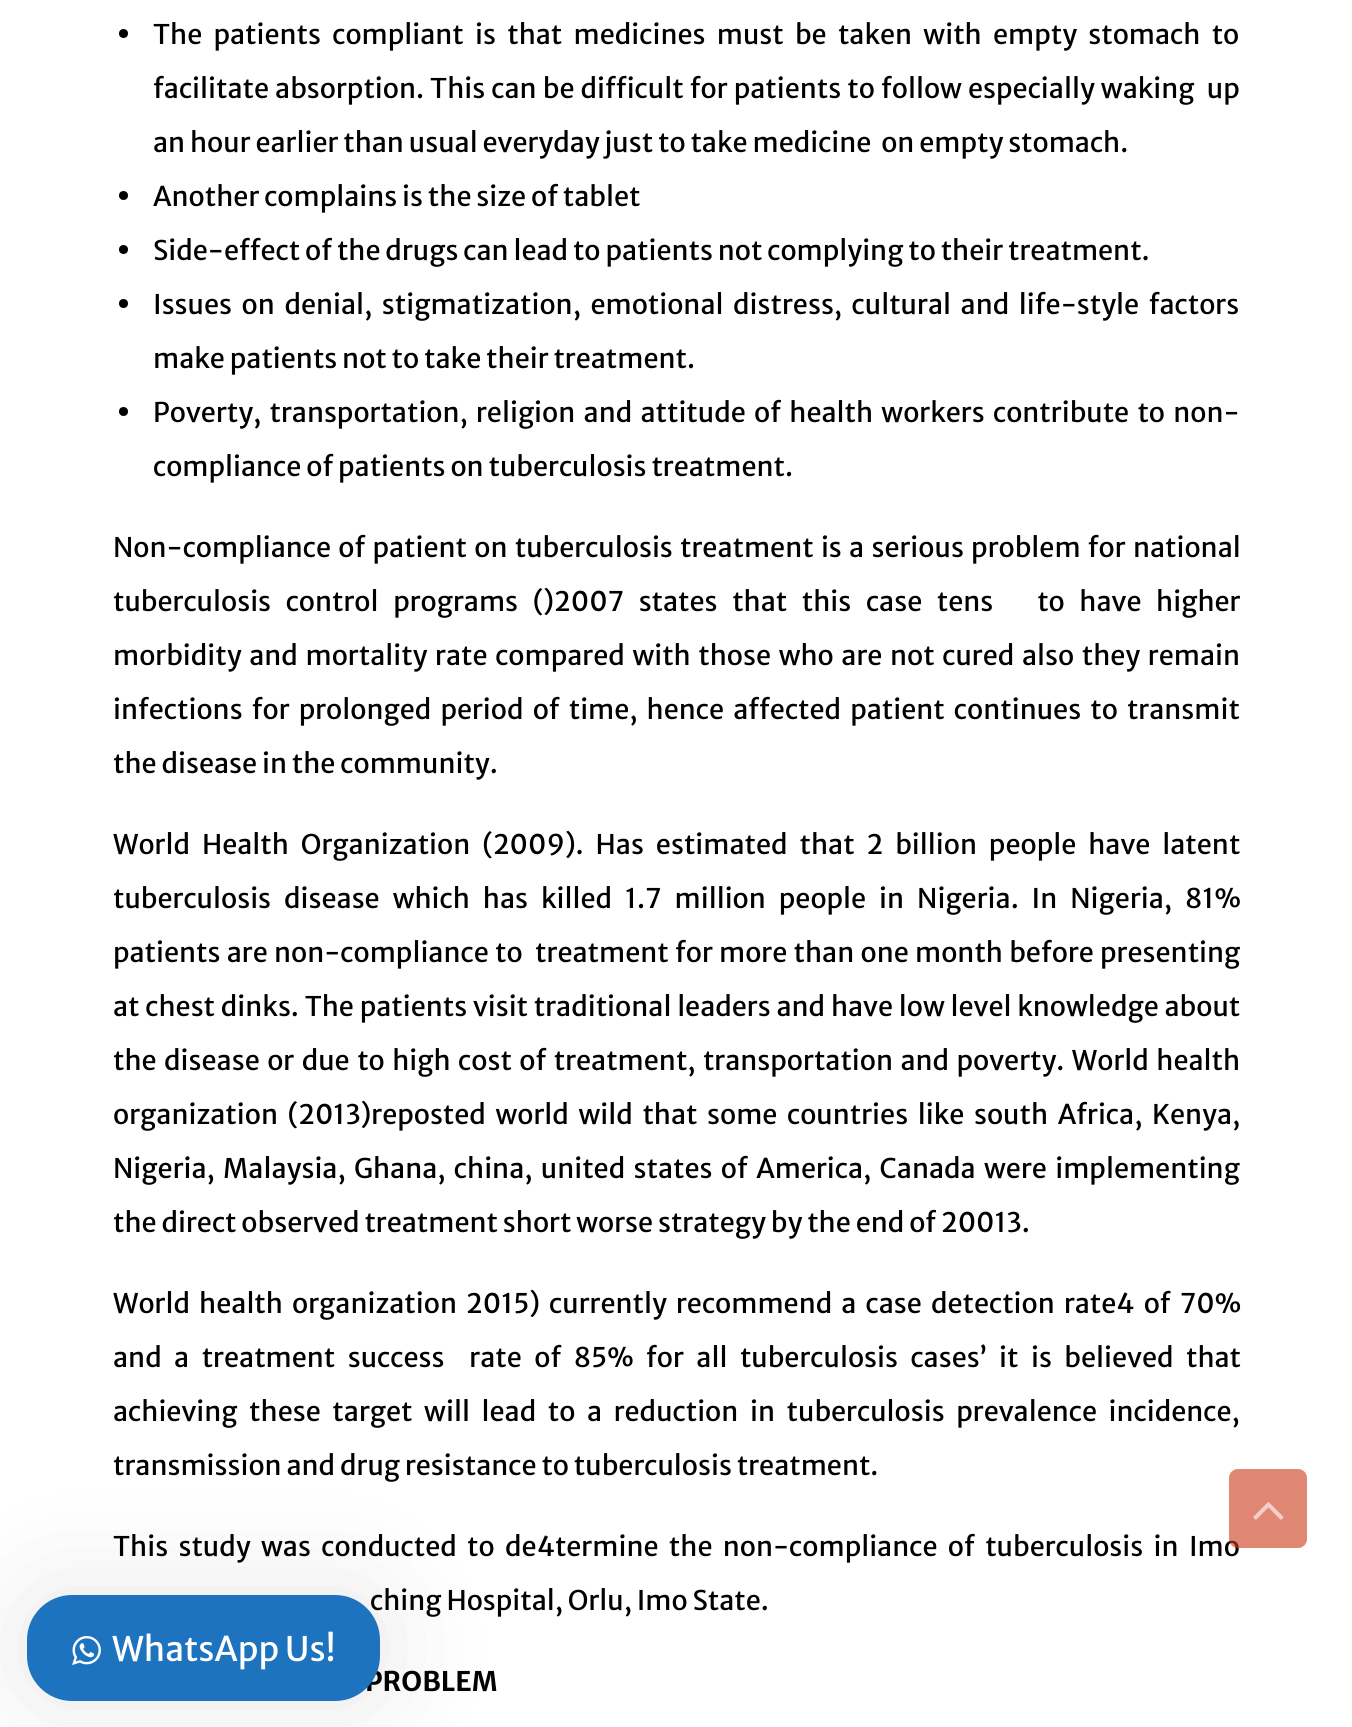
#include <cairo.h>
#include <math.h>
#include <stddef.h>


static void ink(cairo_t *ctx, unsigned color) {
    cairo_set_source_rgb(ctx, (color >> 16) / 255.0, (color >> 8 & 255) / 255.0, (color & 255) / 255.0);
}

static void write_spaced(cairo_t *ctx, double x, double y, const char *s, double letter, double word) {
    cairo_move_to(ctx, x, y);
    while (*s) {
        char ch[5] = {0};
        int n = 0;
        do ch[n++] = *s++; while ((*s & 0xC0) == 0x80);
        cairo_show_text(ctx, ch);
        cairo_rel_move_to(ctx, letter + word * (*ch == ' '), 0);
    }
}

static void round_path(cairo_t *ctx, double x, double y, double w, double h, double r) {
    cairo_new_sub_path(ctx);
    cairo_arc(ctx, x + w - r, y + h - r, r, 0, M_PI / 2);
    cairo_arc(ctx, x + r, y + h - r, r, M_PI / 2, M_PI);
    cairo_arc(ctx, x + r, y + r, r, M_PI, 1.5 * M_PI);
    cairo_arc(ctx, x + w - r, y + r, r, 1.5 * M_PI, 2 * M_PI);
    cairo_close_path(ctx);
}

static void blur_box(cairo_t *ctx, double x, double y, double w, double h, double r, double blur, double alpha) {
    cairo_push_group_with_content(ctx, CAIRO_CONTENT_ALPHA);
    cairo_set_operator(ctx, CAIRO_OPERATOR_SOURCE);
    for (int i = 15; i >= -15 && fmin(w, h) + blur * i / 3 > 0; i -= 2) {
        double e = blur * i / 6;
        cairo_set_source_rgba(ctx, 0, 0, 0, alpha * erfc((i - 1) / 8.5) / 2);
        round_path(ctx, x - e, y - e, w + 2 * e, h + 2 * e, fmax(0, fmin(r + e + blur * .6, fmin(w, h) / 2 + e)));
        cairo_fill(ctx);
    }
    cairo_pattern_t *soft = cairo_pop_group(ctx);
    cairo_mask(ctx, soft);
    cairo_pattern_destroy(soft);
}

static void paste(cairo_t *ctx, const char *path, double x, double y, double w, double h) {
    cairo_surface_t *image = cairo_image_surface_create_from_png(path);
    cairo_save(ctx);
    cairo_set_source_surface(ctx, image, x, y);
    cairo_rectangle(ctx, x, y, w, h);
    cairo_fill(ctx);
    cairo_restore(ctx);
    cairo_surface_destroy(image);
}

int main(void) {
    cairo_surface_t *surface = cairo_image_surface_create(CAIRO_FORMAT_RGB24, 1352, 1727);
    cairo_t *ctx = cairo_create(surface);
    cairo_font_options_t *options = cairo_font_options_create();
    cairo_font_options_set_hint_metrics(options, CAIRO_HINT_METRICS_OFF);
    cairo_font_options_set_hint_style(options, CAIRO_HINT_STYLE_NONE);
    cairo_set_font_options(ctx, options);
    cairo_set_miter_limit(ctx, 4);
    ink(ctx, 0xFFFFFF);
    cairo_paint(ctx);
    ink(ctx, 0x000000);
    cairo_arc(ctx, 123.5, 33.5, 4.5, 0, 2 * M_PI);
    cairo_fill(ctx);
    cairo_select_font_face(ctx, "Merriweather Sans", CAIRO_FONT_SLANT_NORMAL, CAIRO_FONT_WEIGHT_NORMAL);
    cairo_set_font_size(ctx, 27);
    write_spaced(ctx, 153, 44, "The patients compliant is that medicines must be taken with empty stomach to", 0, 6.4);
    write_spaced(ctx, 153, 98, "facilitate absorption. This can be difficult for patients to follow especially waking  up", 0, 1.25);
    cairo_move_to(ctx, 153, 152);
    cairo_show_text(ctx, "an hour earlier than usual everyday just to take medicine  on empty stomach.");
    cairo_new_path(ctx);
    cairo_arc(ctx, 123.5, 195.5, 4.5, 0, 2 * M_PI);
    cairo_fill(ctx);
    cairo_move_to(ctx, 153, 206);
    cairo_show_text(ctx, "Another complains is the size of tablet");
    cairo_new_path(ctx);
    cairo_arc(ctx, 123.5, 249.5, 4.5, 0, 2 * M_PI);
    cairo_fill(ctx);
    cairo_move_to(ctx, 153, 260);
    cairo_show_text(ctx, "Side-effect of the drugs can lead to patients not complying to their treatment.");
    cairo_new_path(ctx);
    cairo_arc(ctx, 123.5, 303.5, 4.5, 0, 2 * M_PI);
    cairo_fill(ctx);
    write_spaced(ctx, 153, 314, "Issues on denial, stigmatization, emotional distress, cultural and life-style factors", 0, 4.75);
    cairo_move_to(ctx, 153, 368);
    cairo_show_text(ctx, "make patients not to take their treatment.");
    cairo_new_path(ctx);
    cairo_arc(ctx, 123.5, 411.5, 4.5, 0, 2 * M_PI);
    cairo_fill(ctx);
    write_spaced(ctx, 153, 422, "Poverty, transportation, religion and attitude of health workers contribute to non-", 0, 3.4);
    cairo_move_to(ctx, 153, 476);
    cairo_show_text(ctx, "compliance of patients on tuberculosis treatment.");
    write_spaced(ctx, 113, 557, "Non-compliance of patient on tuberculosis treatment is a serious problem for national", 0, 2.4);
    write_spaced(ctx, 113, 611, "tuberculosis control programs ()2007 states that this case tens   to have higher", 0, 9.75);
    write_spaced(ctx, 113, 665, "morbidity and mortality rate compared with those who are not cured also they remain", 0, 2.75);
    write_spaced(ctx, 113, 719, "infections for prolonged period of time, hence affected patient continues to transmit", 0, 4.25);
    cairo_move_to(ctx, 113, 773);
    cairo_show_text(ctx, "the disease in the community.");
    write_spaced(ctx, 113, 854, "World Health Organization (2009). Has estimated that 2 billion people have latent", 0, 7.1);
    write_spaced(ctx, 113, 908, "tuberculosis disease which has killed 1.7 million people in Nigeria. In Nigeria, 81%", 0, 8.1);
    write_spaced(ctx, 113, 962, "patients are non-compliance to  treatment for more than one month before presenting", 0, 1.4);
    write_spaced(ctx, 113, 1016, "at chest dinks. The patients visit traditional leaders and have low level knowledge about", 0, 0.9);
    write_spaced(ctx, 113, 1070, "the disease or due to high cost of treatment, transportation and poverty. World health", 0, 2.6);
    write_spaced(ctx, 113, 1124, "organization (2013)reposted world wild that some countries like south Africa, Kenya,", 0, 4.75);
    write_spaced(ctx, 113, 1178, "Nigeria, Malaysia, Ghana, china, united states of America, Canada were implementing", 0, 3.5);
    cairo_move_to(ctx, 113, 1232);
    cairo_show_text(ctx, "the direct observed treatment short worse strategy by the end of 20013.");
    write_spaced(ctx, 113, 1313, "World health organization 2015) currently recommend a case detection rate4 of 70%", 0, 4.25);
    write_spaced(ctx, 113, 1367, "and a treatment success  rate of 85% for all tuberculosis cases’ it is believed that", 0, 7.6);
    write_spaced(ctx, 113, 1421, "achieving these target will lead to a reduction in tuberculosis prevalence incidence,", 0, 6.75);
    cairo_move_to(ctx, 113, 1475);
    cairo_show_text(ctx, "transmission and drug resistance to tuberculosis treatment.");
    write_spaced(ctx, 113, 1556, "This study was conducted to de4termine the non-compliance of tuberculosis in Imo", 0, 5.5);
    cairo_move_to(ctx, 370, 1610);
    cairo_show_text(ctx, "ching Hospital, Orlu, Imo State.");
    cairo_select_font_face(ctx, "Merriweather Sans", CAIRO_FONT_SLANT_NORMAL, CAIRO_FONT_WEIGHT_BOLD);
    cairo_move_to(ctx, 365, 1691);
    cairo_show_text(ctx, "PROBLEM");
    cairo_set_source_rgba(ctx, 0.796, 0.22, 0.094, 0.6);
    round_path(ctx, 1229, 1469, 78, 79, 9);
    cairo_fill(ctx);
    paste(ctx, "media/1.png", 1253, 1502, 31, 18);
    ink(ctx, 0x000000);
    blur_box(ctx, 27, 1595, 353, 106, 45, 56, 0.1);
    ink(ctx, 0x1E73BE);
    round_path(ctx, 27, 1595, 353, 106, 45);
    cairo_fill(ctx);
    paste(ctx, "media/2.png", 72, 1636, 29, 29);
    cairo_select_font_face(ctx, "Merriweather Sans", CAIRO_FONT_SLANT_NORMAL, CAIRO_FONT_WEIGHT_NORMAL);
    cairo_set_font_size(ctx, 33.75);
    ink(ctx, 0xFFFFFF);
    cairo_move_to(ctx, 112, 1661);
    cairo_show_text(ctx, "WhatsApp Us!");
    cairo_surface_write_to_png(surface, "image.png");
    cairo_font_options_destroy(options);
    cairo_destroy(ctx);
    cairo_surface_destroy(surface);
    return 0;
}
